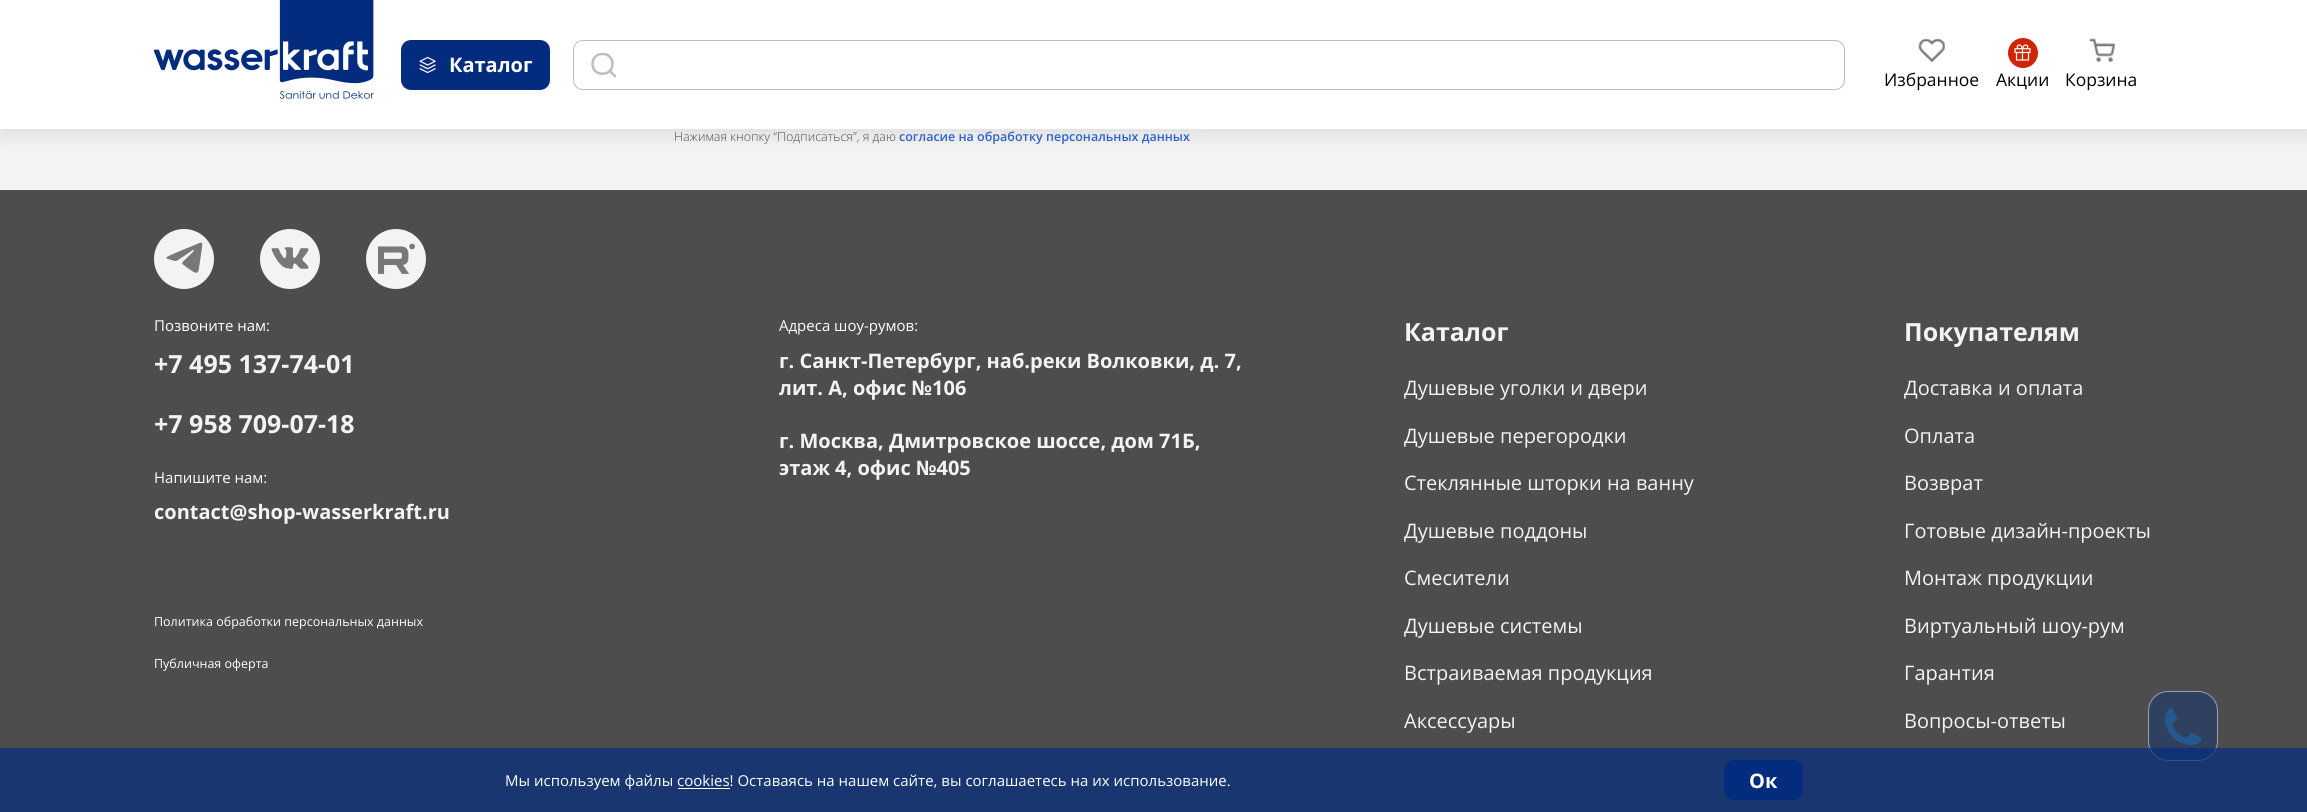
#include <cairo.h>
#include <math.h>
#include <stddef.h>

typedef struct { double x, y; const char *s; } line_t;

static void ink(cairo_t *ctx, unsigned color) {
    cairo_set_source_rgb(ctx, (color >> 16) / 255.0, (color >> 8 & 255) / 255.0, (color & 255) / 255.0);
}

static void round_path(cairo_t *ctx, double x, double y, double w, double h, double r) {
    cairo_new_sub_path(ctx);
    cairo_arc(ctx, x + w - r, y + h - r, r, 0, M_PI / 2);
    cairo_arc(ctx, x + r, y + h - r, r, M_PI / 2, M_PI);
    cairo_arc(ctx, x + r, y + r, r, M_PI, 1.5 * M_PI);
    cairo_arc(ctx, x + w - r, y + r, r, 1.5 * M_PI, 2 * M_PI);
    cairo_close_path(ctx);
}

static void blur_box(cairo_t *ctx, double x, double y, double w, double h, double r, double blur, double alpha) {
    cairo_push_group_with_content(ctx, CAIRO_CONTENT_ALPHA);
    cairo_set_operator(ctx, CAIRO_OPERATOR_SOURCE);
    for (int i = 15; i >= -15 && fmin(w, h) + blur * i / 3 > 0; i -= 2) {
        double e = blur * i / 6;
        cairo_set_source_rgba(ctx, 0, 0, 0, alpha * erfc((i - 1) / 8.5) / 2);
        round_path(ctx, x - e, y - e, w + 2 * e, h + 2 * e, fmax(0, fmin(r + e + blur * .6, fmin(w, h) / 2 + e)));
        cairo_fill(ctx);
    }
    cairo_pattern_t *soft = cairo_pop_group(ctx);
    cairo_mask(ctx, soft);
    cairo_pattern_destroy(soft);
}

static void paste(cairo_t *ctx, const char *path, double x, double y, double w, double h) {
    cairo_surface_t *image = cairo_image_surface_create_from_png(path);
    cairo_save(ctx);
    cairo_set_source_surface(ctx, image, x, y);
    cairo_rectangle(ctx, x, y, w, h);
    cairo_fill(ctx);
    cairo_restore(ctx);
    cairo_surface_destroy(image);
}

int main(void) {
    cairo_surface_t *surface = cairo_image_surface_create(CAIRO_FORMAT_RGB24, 2307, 812);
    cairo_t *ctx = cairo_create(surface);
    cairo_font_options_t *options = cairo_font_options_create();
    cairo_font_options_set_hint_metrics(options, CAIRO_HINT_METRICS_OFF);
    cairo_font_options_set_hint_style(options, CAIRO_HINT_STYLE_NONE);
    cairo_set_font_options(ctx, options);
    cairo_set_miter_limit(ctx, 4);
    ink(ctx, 0xF4F3F3);
    cairo_paint(ctx);
    ink(ctx, 0x000000);
    blur_box(ctx, 0, 5, 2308, 129, 0, 10, 0.1);
    ink(ctx, 0xFFFFFF);
    cairo_rectangle(ctx, 0, 0, 2307, 129);
    cairo_fill(ctx);
    paste(ctx, "media/1.png", 154, 0, 220, 99);
    ink(ctx, 0x032C7F);
    round_path(ctx, 401, 40, 149, 50, 10);
    cairo_fill(ctx);
    paste(ctx, "media/2.png", 419, 56, 17, 18);
    cairo_select_font_face(ctx, "Open Sans", CAIRO_FONT_SLANT_NORMAL, CAIRO_FONT_WEIGHT_BOLD);
    cairo_set_font_size(ctx, 20);
    ink(ctx, 0xFFFFFF);
    cairo_move_to(ctx, 449, 72);
    cairo_show_text(ctx, "Каталог");
    cairo_save(ctx);
    cairo_rectangle(ctx, 591, 53, 25, 25);
    cairo_clip(ctx);
    cairo_new_path(ctx);
    cairo_move_to(ctx, 615, 76);
    cairo_line_to(ctx, 609.5, 71);
    cairo_move_to(ctx, 612.5, 64);
    cairo_curve_to(ctx, 612.5, 77, 592.5, 77, 592.5, 64);
    cairo_curve_to(ctx, 592.5, 50.5, 612.5, 50.5, 612.5, 64);
    cairo_close_path(ctx);
    ink(ctx, 0xBDBDBD);
    cairo_set_line_width(ctx, 2.5);
    cairo_set_line_cap(ctx, CAIRO_LINE_CAP_ROUND);
    cairo_set_line_join(ctx, CAIRO_LINE_JOIN_ROUND);
    cairo_stroke(ctx);
    cairo_restore(ctx);
    round_path(ctx, 573.5, 40.5, 1271, 49, 9.5);
    ink(ctx, 0xBDBDBD);
    cairo_set_line_width(ctx, 1);
    cairo_stroke(ctx);
    paste(ctx, "media/3.png", 1918, 38, 27, 25);
    cairo_select_font_face(ctx, "Open Sans", CAIRO_FONT_SLANT_NORMAL, CAIRO_FONT_WEIGHT_NORMAL);
    cairo_set_font_size(ctx, 17.5);
    ink(ctx, 0x000000);
    cairo_move_to(ctx, 1884, 86);
    cairo_show_text(ctx, "Избранное");
    ink(ctx, 0xCE2500);
    cairo_new_path(ctx);
    cairo_arc(ctx, 2023, 53, 15, 0, 2 * M_PI);
    cairo_fill(ctx);
    paste(ctx, "media/4.png", 2014, 44, 17, 17);
    ink(ctx, 0x000000);
    cairo_move_to(ctx, 1996, 86);
    cairo_show_text(ctx, "Акции");
    paste(ctx, "media/5.png", 2089, 38, 26, 25);
    cairo_move_to(ctx, 2065, 86);
    cairo_show_text(ctx, "Корзина");
    cairo_select_font_face(ctx, "Open Sans Light", CAIRO_FONT_SLANT_NORMAL, CAIRO_FONT_WEIGHT_NORMAL);
    cairo_set_font_size(ctx, 12.5);
    ink(ctx, 0x4D4D4D);
    cairo_move_to(ctx, 674, 141);
    cairo_show_text(ctx, "Нажимая кнопку “Подписаться”, я даю");
    cairo_select_font_face(ctx, "Open Sans SemiBold", CAIRO_FONT_SLANT_NORMAL, CAIRO_FONT_WEIGHT_NORMAL);
    ink(ctx, 0x2D63CC);
    cairo_move_to(ctx, 899, 141);
    cairo_show_text(ctx, "согласие на обработку персональных данных");
    ink(ctx, 0x4D4D4D);
    cairo_rectangle(ctx, 0, 190, 2307, 622);
    cairo_fill(ctx);
    ink(ctx, 0xF4F3F3);
    cairo_arc(ctx, 184, 259, 30, 0, 2 * M_PI);
    cairo_fill(ctx);
    paste(ctx, "media/6.png", 166, 242, 37, 31);
    cairo_arc(ctx, 290, 259, 30, 0, 2 * M_PI);
    cairo_fill(ctx);
    paste(ctx, "media/7.png", 271, 247, 38, 22);
    cairo_arc(ctx, 396, 259, 30, 0, 2 * M_PI);
    cairo_fill(ctx);
    paste(ctx, "media/8.png", 378, 243, 37, 31);
    cairo_select_font_face(ctx, "Open Sans", CAIRO_FONT_SLANT_NORMAL, CAIRO_FONT_WEIGHT_NORMAL);
    cairo_set_font_size(ctx, 15);
    ink(ctx, 0xFFFFFF);
    cairo_move_to(ctx, 154, 331);
    cairo_show_text(ctx, "Позвоните нам:");
    cairo_select_font_face(ctx, "Open Sans", CAIRO_FONT_SLANT_NORMAL, CAIRO_FONT_WEIGHT_BOLD);
    cairo_set_font_size(ctx, 25);
    ink(ctx, 0xF4F3F3);
    cairo_move_to(ctx, 154, 373);
    cairo_show_text(ctx, "+7 495 137-74-01");
    cairo_move_to(ctx, 154, 433);
    cairo_show_text(ctx, "+7 958 709-07-18");
    cairo_select_font_face(ctx, "Open Sans", CAIRO_FONT_SLANT_NORMAL, CAIRO_FONT_WEIGHT_NORMAL);
    cairo_set_font_size(ctx, 15);
    ink(ctx, 0xFFFFFF);
    cairo_move_to(ctx, 154, 483);
    cairo_show_text(ctx, "Напишите нам:");
    cairo_select_font_face(ctx, "Open Sans", CAIRO_FONT_SLANT_NORMAL, CAIRO_FONT_WEIGHT_BOLD);
    cairo_set_font_size(ctx, 20);
    ink(ctx, 0xF4F3F3);
    cairo_move_to(ctx, 154, 519);
    cairo_show_text(ctx, "contact@shop-wasserkraft.ru");
    cairo_select_font_face(ctx, "Open Sans", CAIRO_FONT_SLANT_NORMAL, CAIRO_FONT_WEIGHT_NORMAL);
    cairo_set_font_size(ctx, 15);
    ink(ctx, 0xFFFFFF);
    cairo_move_to(ctx, 779, 331);
    cairo_show_text(ctx, "Адреса шоу-румов:");
    cairo_select_font_face(ctx, "Open Sans", CAIRO_FONT_SLANT_NORMAL, CAIRO_FONT_WEIGHT_BOLD);
    cairo_set_font_size(ctx, 20);
    ink(ctx, 0xF4F3F3);
    {
        static const line_t items[] = {
            {779, 368, "г. Санкт-Петербург, наб.реки Волковки, д. 7,"},
            {779, 395, "лит. А, офис №106"},
            {779, 448, "г. Москва, Дмитровское шоссе, дом 71Б,"},
            {779, 475, "этаж 4, офис №405"},
        };
        for (size_t i = 0; i < sizeof items / sizeof *items; i++) {
            cairo_move_to(ctx, items[i].x, items[i].y);
            cairo_show_text(ctx, items[i].s);
        }
    }
    cairo_select_font_face(ctx, "Open Sans", CAIRO_FONT_SLANT_NORMAL, CAIRO_FONT_WEIGHT_NORMAL);
    cairo_set_font_size(ctx, 12.5);
    ink(ctx, 0xFFFFFF);
    cairo_move_to(ctx, 154, 626);
    cairo_show_text(ctx, "Политика обработки персональных данных");
    cairo_move_to(ctx, 154, 668);
    cairo_show_text(ctx, "Публичная оферта");
    cairo_select_font_face(ctx, "Open Sans", CAIRO_FONT_SLANT_NORMAL, CAIRO_FONT_WEIGHT_BOLD);
    cairo_set_font_size(ctx, 25);
    ink(ctx, 0xF4F3F3);
    cairo_move_to(ctx, 1404, 341);
    cairo_show_text(ctx, "Каталог");
    cairo_select_font_face(ctx, "Open Sans", CAIRO_FONT_SLANT_NORMAL, CAIRO_FONT_WEIGHT_NORMAL);
    cairo_set_font_size(ctx, 20);
    {
        static const line_t items[] = {
            {1404, 395, "Душевые уголки и двери"},
            {1404, 443, "Душевые перегородки"},
            {1404, 490, "Стеклянные шторки на ванну"},
            {1404, 538, "Душевые поддоны"},
            {1404, 585, "Смесители"},
            {1404, 633, "Душевые системы"},
            {1404, 680, "Встраиваемая продукция"},
            {1404, 728, "Аксессуары"},
        };
        for (size_t i = 0; i < sizeof items / sizeof *items; i++) {
            cairo_move_to(ctx, items[i].x, items[i].y);
            cairo_show_text(ctx, items[i].s);
        }
    }
    cairo_select_font_face(ctx, "Open Sans", CAIRO_FONT_SLANT_NORMAL, CAIRO_FONT_WEIGHT_BOLD);
    cairo_set_font_size(ctx, 25);
    cairo_move_to(ctx, 1904, 341);
    cairo_show_text(ctx, "Покупателям");
    cairo_select_font_face(ctx, "Open Sans", CAIRO_FONT_SLANT_NORMAL, CAIRO_FONT_WEIGHT_NORMAL);
    cairo_set_font_size(ctx, 20);
    {
        static const line_t items[] = {
            {1904, 395, "Доставка и оплата"},
            {1904, 443, "Оплата"},
            {1904, 490, "Возврат"},
            {1904, 538, "Готовые дизайн-проекты"},
            {1904, 585, "Монтаж продукции"},
            {1904, 633, "Виртуальный шоу-рум"},
            {1904, 680, "Гарантия"},
            {1904, 728, "Вопросы-ответы"},
        };
        for (size_t i = 0; i < sizeof items / sizeof *items; i++) {
            cairo_move_to(ctx, items[i].x, items[i].y);
            cairo_show_text(ctx, items[i].s);
        }
    }
    ink(ctx, 0x304061);
    round_path(ctx, 2148, 691, 70, 70, 20);
    cairo_fill(ctx);
    paste(ctx, "media/9.png", 2165, 707, 38, 38);
    round_path(ctx, 2148.5, 691.5, 69, 69, 19.5);
    cairo_set_source_rgba(ctx, 1, 1, 1, 0.5);
    cairo_stroke(ctx);
    cairo_set_source_rgba(ctx, 0.012, 0.173, 0.498, 0.7);
    cairo_rectangle(ctx, 0, 748, 2307, 64);
    cairo_fill(ctx);
    cairo_set_font_size(ctx, 15);
    ink(ctx, 0xFFFFFF);
    cairo_move_to(ctx, 505, 786);
    cairo_show_text(ctx, "Мы используем файлы cookies! Оставаясь на нашем сайте, вы соглашаетесь на их использование.");
    cairo_rectangle(ctx, 678, 788, 52, 1);
    cairo_fill(ctx);
    ink(ctx, 0x032C7F);
    round_path(ctx, 1724, 760, 79, 40, 10);
    cairo_fill(ctx);
    cairo_select_font_face(ctx, "Open Sans", CAIRO_FONT_SLANT_NORMAL, CAIRO_FONT_WEIGHT_BOLD);
    cairo_set_font_size(ctx, 20);
    ink(ctx, 0xFFFFFF);
    cairo_move_to(ctx, 1749, 788);
    cairo_show_text(ctx, "Ок");
    cairo_surface_write_to_png(surface, "image.png");
    cairo_font_options_destroy(options);
    cairo_destroy(ctx);
    cairo_surface_destroy(surface);
    return 0;
}
